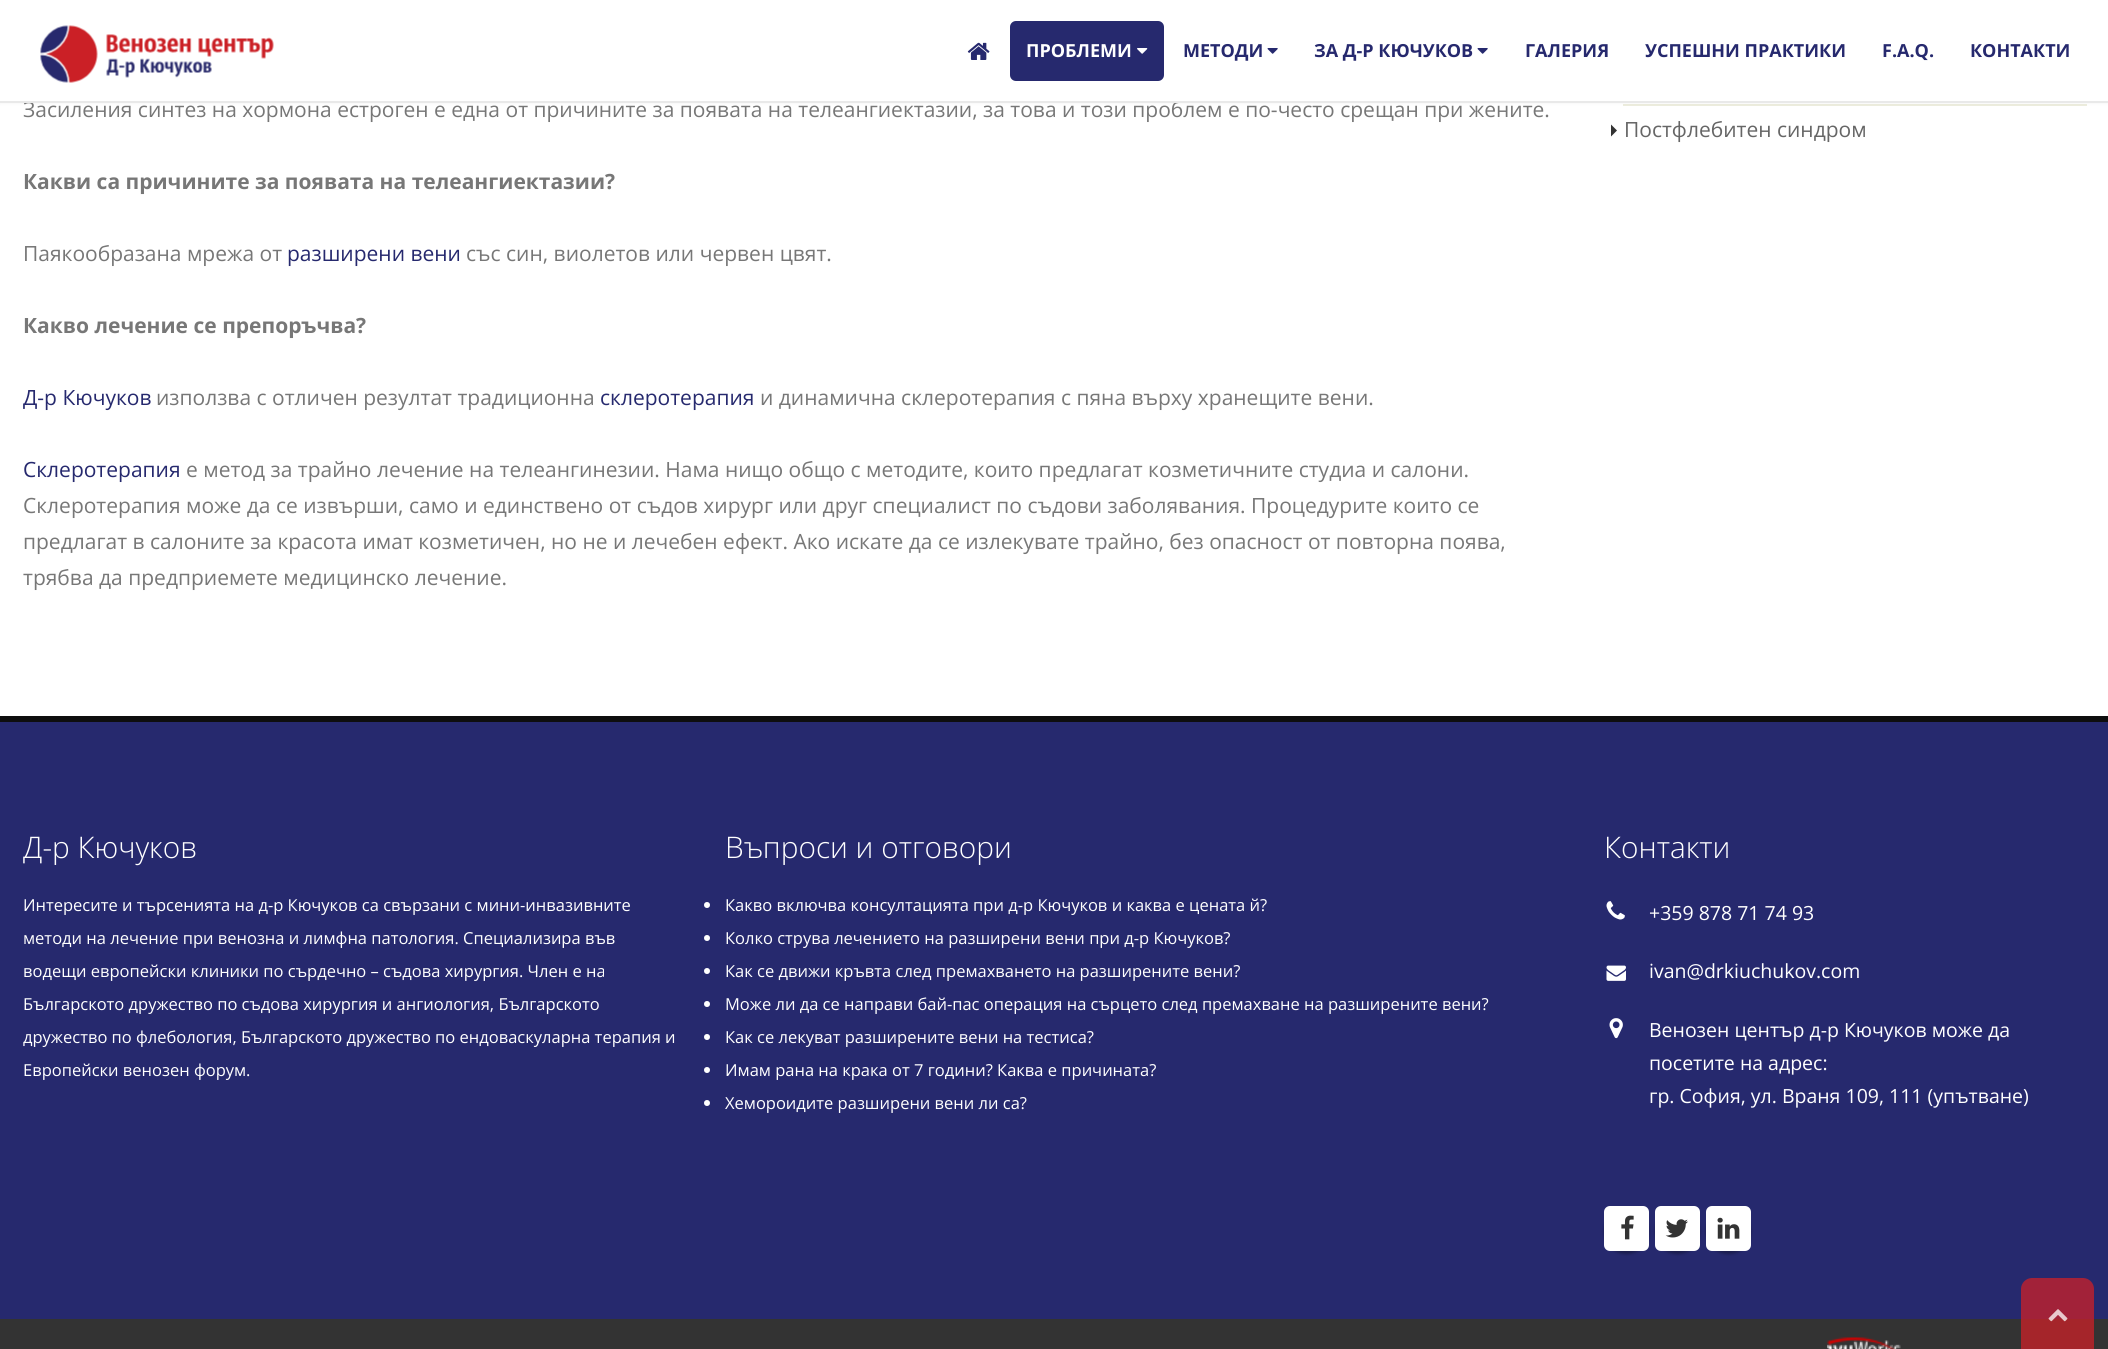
#include <cairo.h>
#include <math.h>
#include <stddef.h>

typedef struct { double x, y; const char *s; } line_t;

static void ink(cairo_t *ctx, unsigned color) {
    cairo_set_source_rgb(ctx, (color >> 16) / 255.0, (color >> 8 & 255) / 255.0, (color & 255) / 255.0);
}

static void round_path(cairo_t *ctx, double x, double y, double w, double h, double r) {
    cairo_new_sub_path(ctx);
    cairo_arc(ctx, x + w - r, y + h - r, r, 0, M_PI / 2);
    cairo_arc(ctx, x + r, y + h - r, r, M_PI / 2, M_PI);
    cairo_arc(ctx, x + r, y + r, r, M_PI, 1.5 * M_PI);
    cairo_arc(ctx, x + w - r, y + r, r, 1.5 * M_PI, 2 * M_PI);
    cairo_close_path(ctx);
}

static void blur_box(cairo_t *ctx, double x, double y, double w, double h, double r, double blur, double alpha) {
    cairo_push_group_with_content(ctx, CAIRO_CONTENT_ALPHA);
    cairo_set_operator(ctx, CAIRO_OPERATOR_SOURCE);
    for (int i = 15; i >= -15 && fmin(w, h) + blur * i / 3 > 0; i -= 2) {
        double e = blur * i / 6;
        cairo_set_source_rgba(ctx, 0, 0, 0, alpha * erfc((i - 1) / 8.5) / 2);
        round_path(ctx, x - e, y - e, w + 2 * e, h + 2 * e, fmax(0, fmin(r + e + blur * .6, fmin(w, h) / 2 + e)));
        cairo_fill(ctx);
    }
    cairo_pattern_t *soft = cairo_pop_group(ctx);
    cairo_mask(ctx, soft);
    cairo_pattern_destroy(soft);
}

static void paste(cairo_t *ctx, const char *path, double x, double y, double w, double h) {
    cairo_surface_t *image = cairo_image_surface_create_from_png(path);
    cairo_save(ctx);
    cairo_set_source_surface(ctx, image, x, y);
    cairo_rectangle(ctx, x, y, w, h);
    cairo_fill(ctx);
    cairo_restore(ctx);
    cairo_surface_destroy(image);
}

int main(void) {
    cairo_surface_t *surface = cairo_image_surface_create(CAIRO_FORMAT_RGB24, 2108, 1349);
    cairo_t *ctx = cairo_create(surface);
    cairo_font_options_t *options = cairo_font_options_create();
    cairo_font_options_set_hint_metrics(options, CAIRO_HINT_METRICS_OFF);
    cairo_font_options_set_hint_style(options, CAIRO_HINT_STYLE_NONE);
    cairo_set_font_options(ctx, options);
    cairo_set_miter_limit(ctx, 4);
    ink(ctx, 0xFFFFFF);
    cairo_paint(ctx);
    ink(ctx, 0xEDEDDE);
    cairo_rectangle(ctx, 1623, 104, 464, 2);
    cairo_fill(ctx);
    ink(ctx, 0x000000);
    blur_box(ctx, 0, -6, 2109, 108, 0, 2, 0.1);
    cairo_select_font_face(ctx, "Open Sans", CAIRO_FONT_SLANT_NORMAL, CAIRO_FONT_WEIGHT_NORMAL);
    cairo_set_font_size(ctx, 21);
    ink(ctx, 0x777777);
    cairo_move_to(ctx, 23, 117);
    cairo_show_text(ctx, "Засиления синтез на хормона естроген е една от причините за появата на телеангиектазии, за това и този проблем е по-често срещан при жените.");
    ink(ctx, 0xFFFFFF);
    cairo_rectangle(ctx, 0, 0, 2108, 101);
    cairo_fill(ctx);
    ink(ctx, 0xE9E9E9);
    cairo_rectangle(ctx, 0, 101, 2108, 2);
    cairo_fill(ctx);
    paste(ctx, "media/1.png", 40, 25, 234, 58);
    paste(ctx, "media/2.png", 967, 42, 23, 18);
    ink(ctx, 0x26296E);
    round_path(ctx, 1010, 21, 154, 60, 6);
    cairo_fill(ctx);
    cairo_select_font_face(ctx, "Open Sans", CAIRO_FONT_SLANT_NORMAL, CAIRO_FONT_WEIGHT_BOLD);
    cairo_set_font_size(ctx, 18);
    ink(ctx, 0xFFFFFF);
    cairo_move_to(ctx, 1026, 57);
    cairo_show_text(ctx, "ПРОБЛЕМИ");
    paste(ctx, "media/3.png", 1137, 48, 11, 6);
    ink(ctx, 0x26296E);
    cairo_move_to(ctx, 1183, 57);
    cairo_show_text(ctx, "МЕТОДИ");
    paste(ctx, "media/4.png", 1267, 48, 11, 6);
    cairo_move_to(ctx, 1314, 57);
    cairo_show_text(ctx, "ЗА Д-Р КЮЧУКОВ");
    paste(ctx, "media/4.png", 1477, 48, 11, 6);
    {
        static const line_t items[] = {
            {1525, 57, "ГАЛЕРИЯ"},
            {1645, 57, "УСПЕШНИ ПРАКТИКИ"},
            {1882, 57, "F.A.Q."},
            {1970, 57, "КОНТАКТИ"},
        };
        for (size_t i = 0; i < sizeof items / sizeof *items; i++) {
            cairo_move_to(ctx, items[i].x, items[i].y);
            cairo_show_text(ctx, items[i].s);
        }
    }
    cairo_set_font_size(ctx, 21);
    ink(ctx, 0x777777);
    cairo_move_to(ctx, 23, 189);
    cairo_show_text(ctx, "Какви са причините за появата на телеангиектазии?");
    cairo_select_font_face(ctx, "Open Sans", CAIRO_FONT_SLANT_NORMAL, CAIRO_FONT_WEIGHT_NORMAL);
    cairo_move_to(ctx, 23, 261);
    cairo_show_text(ctx, "Паякообразана мрежа от");
    ink(ctx, 0x26296E);
    cairo_move_to(ctx, 287, 261);
    cairo_show_text(ctx, "разширени вени");
    ink(ctx, 0x777777);
    cairo_move_to(ctx, 466, 261);
    cairo_show_text(ctx, "със син, виолетов или червен цвят.");
    cairo_select_font_face(ctx, "Open Sans", CAIRO_FONT_SLANT_NORMAL, CAIRO_FONT_WEIGHT_BOLD);
    cairo_move_to(ctx, 23, 333);
    cairo_show_text(ctx, "Какво лечение се препоръчва?");
    cairo_select_font_face(ctx, "Open Sans", CAIRO_FONT_SLANT_NORMAL, CAIRO_FONT_WEIGHT_NORMAL);
    ink(ctx, 0x26296E);
    cairo_move_to(ctx, 23, 405);
    cairo_show_text(ctx, "Д-р Кючуков");
    ink(ctx, 0x777777);
    cairo_move_to(ctx, 156, 405);
    cairo_show_text(ctx, "използва с отличен резултат традиционна");
    ink(ctx, 0x26296E);
    cairo_move_to(ctx, 600, 405);
    cairo_show_text(ctx, "склеротерапия");
    ink(ctx, 0x777777);
    cairo_move_to(ctx, 760, 405);
    cairo_show_text(ctx, "и динамична склеротерапия с пяна върху хранещите вени.");
    ink(ctx, 0x26296E);
    cairo_move_to(ctx, 23, 477);
    cairo_show_text(ctx, "Склеротерапия");
    ink(ctx, 0x777777);
    {
        static const line_t items[] = {
            {186, 477, "е метод за трайно лечение на телеангинезии. Нама нищо общо с методите, които предлагат козметичните студиа и салони."},
            {23, 513, "Склеротерапия може да се извърши, само и единствено от съдов хирург или друг специалист по съдови заболявания. Процедурите които се"},
            {23, 549, "предлагат в салоните за красота имат козметичен, но не и лечебен ефект. Ако искате да се излекувате трайно, без опасност от повторна поява,"},
            {23, 585, "трябва да предприемете медицинско лечение."},
        };
        for (size_t i = 0; i < sizeof items / sizeof *items; i++) {
            cairo_move_to(ctx, items[i].x, items[i].y);
            cairo_show_text(ctx, items[i].s);
        }
    }
    ink(ctx, 0x333333);
    cairo_new_path(ctx);
    cairo_move_to(ctx, 1611, 136.5);
    cairo_line_to(ctx, 1611, 124.5);
    cairo_line_to(ctx, 1617, 130.5);
    cairo_close_path(ctx);
    cairo_fill(ctx);
    ink(ctx, 0x666666);
    cairo_move_to(ctx, 1624, 137);
    cairo_show_text(ctx, "Постфлебитен синдром");
    ink(ctx, 0x26296E);
    cairo_rectangle(ctx, 0, 722, 2108, 597);
    cairo_fill(ctx);
    ink(ctx, 0x0E0E0E);
    cairo_rectangle(ctx, 0, 716, 2108, 6);
    cairo_fill(ctx);
    cairo_select_font_face(ctx, "Open Sans Light", CAIRO_FONT_SLANT_NORMAL, CAIRO_FONT_WEIGHT_NORMAL);
    cairo_set_font_size(ctx, 29.75);
    ink(ctx, 0xFFFFFF);
    cairo_move_to(ctx, 23, 858);
    cairo_show_text(ctx, "Д-р Кючуков");
    cairo_select_font_face(ctx, "Open Sans", CAIRO_FONT_SLANT_NORMAL, CAIRO_FONT_WEIGHT_NORMAL);
    cairo_set_font_size(ctx, 16.5);
    {
        static const line_t items[] = {
            {23, 911, "Интересите и търсенията на д-р Кючуков са свързани с мини-инвазивните"},
            {23, 944, "методи на лечение при венозна и лимфна патология. Специализира във"},
            {23, 977, "водещи европейски клиники по сърдечно – съдова хирургия. Член е на"},
            {23, 1010, "Българското дружество по съдова хирургия и ангиология, Българското"},
            {23, 1043, "дружество по флебология, Българското дружество по ендоваскуларна терапия и"},
            {23, 1076, "Европейски венозен форум."},
        };
        for (size_t i = 0; i < sizeof items / sizeof *items; i++) {
            cairo_move_to(ctx, items[i].x, items[i].y);
            cairo_show_text(ctx, items[i].s);
        }
    }
    cairo_select_font_face(ctx, "Open Sans Light", CAIRO_FONT_SLANT_NORMAL, CAIRO_FONT_WEIGHT_NORMAL);
    cairo_set_font_size(ctx, 29.75);
    cairo_move_to(ctx, 725, 858);
    cairo_show_text(ctx, "Въпроси и отговори");
    cairo_new_path(ctx);
    cairo_arc(ctx, 707, 905, 3, 0, 2 * M_PI);
    cairo_fill(ctx);
    cairo_select_font_face(ctx, "Open Sans", CAIRO_FONT_SLANT_NORMAL, CAIRO_FONT_WEIGHT_NORMAL);
    cairo_set_font_size(ctx, 16.5);
    cairo_move_to(ctx, 725, 911);
    cairo_show_text(ctx, "Какво включва консултацията при д-р Кючуков и каква е цената й?");
    cairo_new_path(ctx);
    cairo_arc(ctx, 707, 938, 3, 0, 2 * M_PI);
    cairo_fill(ctx);
    cairo_move_to(ctx, 725, 944);
    cairo_show_text(ctx, "Колко струва лечението на разширени вени при д-р Кючуков?");
    cairo_new_path(ctx);
    cairo_arc(ctx, 707, 971, 3, 0, 2 * M_PI);
    cairo_fill(ctx);
    cairo_move_to(ctx, 725, 977);
    cairo_show_text(ctx, "Как се движи кръвта след премахването на разширените вени?");
    cairo_new_path(ctx);
    cairo_arc(ctx, 707, 1004, 3, 0, 2 * M_PI);
    cairo_fill(ctx);
    cairo_move_to(ctx, 725, 1010);
    cairo_show_text(ctx, "Може ли да се направи бай-пас операция на сърцето след премахване на разширените вени?");
    cairo_new_path(ctx);
    cairo_arc(ctx, 707, 1037, 3, 0, 2 * M_PI);
    cairo_fill(ctx);
    cairo_move_to(ctx, 725, 1043);
    cairo_show_text(ctx, "Как се лекуват разширените вени на тестиса?");
    cairo_new_path(ctx);
    cairo_arc(ctx, 707, 1070, 3, 0, 2 * M_PI);
    cairo_fill(ctx);
    cairo_move_to(ctx, 725, 1076);
    cairo_show_text(ctx, "Имам рана на крака от 7 години? Каква е причината?");
    cairo_new_path(ctx);
    cairo_arc(ctx, 707, 1103, 3, 0, 2 * M_PI);
    cairo_fill(ctx);
    cairo_move_to(ctx, 725, 1109);
    cairo_show_text(ctx, "Хемороидите разширени вени ли са?");
    cairo_select_font_face(ctx, "Open Sans Light", CAIRO_FONT_SLANT_NORMAL, CAIRO_FONT_WEIGHT_NORMAL);
    cairo_set_font_size(ctx, 29.75);
    cairo_move_to(ctx, 1604, 858);
    cairo_show_text(ctx, "Контакти");
    paste(ctx, "media/5.png", 1606, 901, 19, 19);
    cairo_select_font_face(ctx, "Open Sans", CAIRO_FONT_SLANT_NORMAL, CAIRO_FONT_WEIGHT_NORMAL);
    cairo_set_font_size(ctx, 19.5);
    cairo_move_to(ctx, 1649, 920);
    cairo_show_text(ctx, "+359 878 71 74 93");
    paste(ctx, "media/6.png", 1606, 965, 20, 16);
    cairo_move_to(ctx, 1649, 978);
    cairo_show_text(ctx, "ivan@drkiuchukov.com");
    paste(ctx, "media/7.png", 1609, 1018, 14, 21);
    {
        static const line_t items[] = {
            {1649, 1037, "Венозен център д-р Кючуков може да"},
            {1649, 1070, "посетите на адрес:"},
            {1649, 1103, "гр. София, ул. Враня 109, 111 (упътване)"},
        };
        for (size_t i = 0; i < sizeof items / sizeof *items; i++) {
            cairo_move_to(ctx, items[i].x, items[i].y);
            cairo_show_text(ctx, items[i].s);
        }
    }
    ink(ctx, 0x000000);
    blur_box(ctx, 1604, 1209, 45, 45, 22.5, 1.5, 0.3);
    ink(ctx, 0xFFFFFF);
    round_path(ctx, 1604, 1206, 45, 45, 6);
    cairo_fill(ctx);
    paste(ctx, "media/8.png", 1621, 1215, 13, 25);
    ink(ctx, 0x000000);
    blur_box(ctx, 1655, 1209, 45, 45, 22.5, 1.5, 0.3);
    ink(ctx, 0xFFFFFF);
    round_path(ctx, 1655, 1206, 45, 45, 6);
    cairo_fill(ctx);
    paste(ctx, "media/9.png", 1665, 1219, 23, 19);
    ink(ctx, 0x000000);
    blur_box(ctx, 1706, 1209, 45, 45, 22.5, 1.5, 0.3);
    ink(ctx, 0xFFFFFF);
    round_path(ctx, 1706, 1206, 45, 45, 6);
    cairo_fill(ctx);
    paste(ctx, "media/10.png", 1717, 1217, 23, 22);
    ink(ctx, 0x333333);
    cairo_rectangle(ctx, 0, 1319, 2108, 30);
    cairo_fill(ctx);
    paste(ctx, "media/11.png", 1827, 1337, 74, 12);
    cairo_set_source_rgba(ctx, 0.796, 0.125, 0.153, 0.75);
    cairo_new_path(ctx);
    cairo_move_to(ctx, 2032, 1278);
    cairo_line_to(ctx, 2083, 1278);
    cairo_curve_to(ctx, 2089, 1278, 2094, 1283, 2094, 1289);
    cairo_line_to(ctx, 2094, 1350);
    cairo_line_to(ctx, 2021, 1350);
    cairo_line_to(ctx, 2021, 1289);
    cairo_curve_to(ctx, 2021, 1283, 2026, 1278, 2032, 1278);
    cairo_close_path(ctx);
    cairo_fill(ctx);
    paste(ctx, "media/12.png", 2048, 1309, 20, 13);
    cairo_surface_write_to_png(surface, "image.png");
    cairo_font_options_destroy(options);
    cairo_destroy(ctx);
    cairo_surface_destroy(surface);
    return 0;
}
